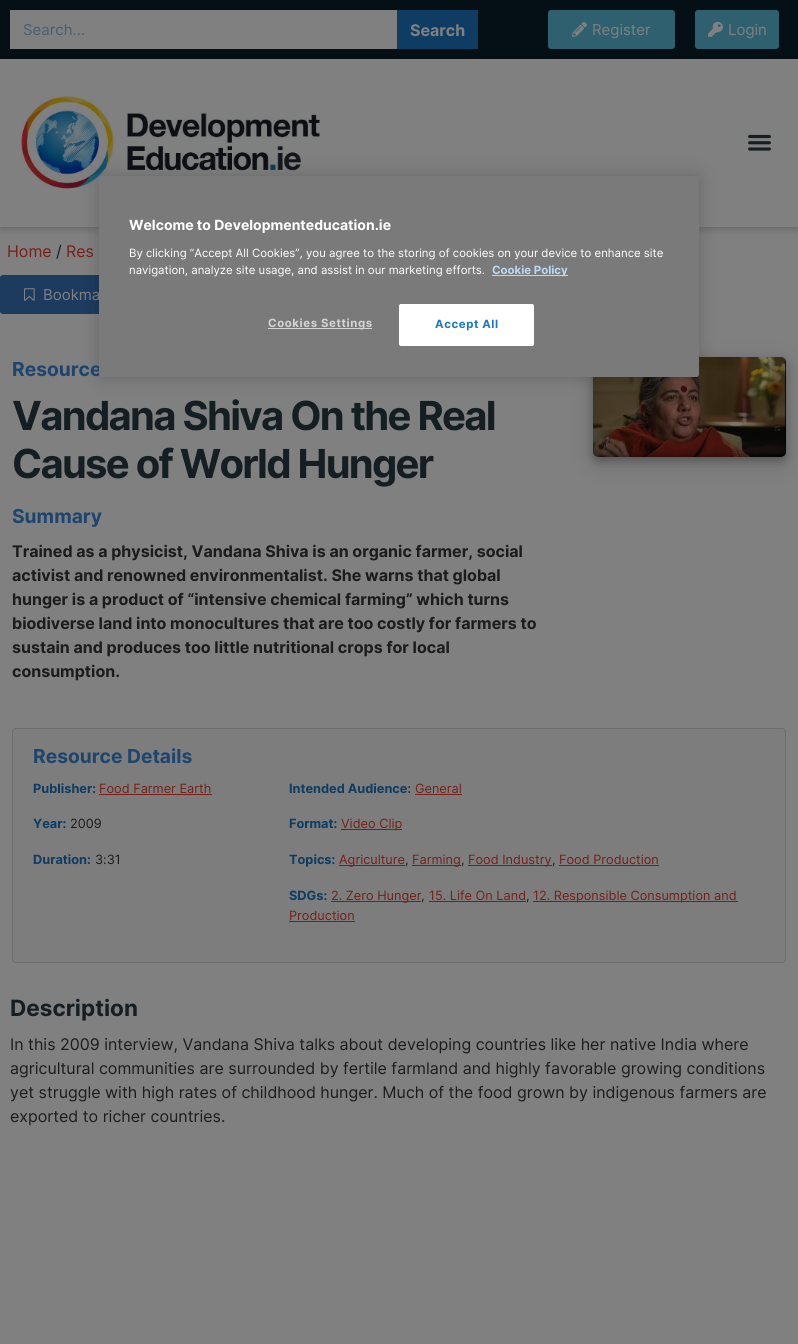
#include <cairo.h>
#include <math.h>
#include <stddef.h>

typedef struct { double x, y; const char *s; } line_t;

static void ink(cairo_t *ctx, unsigned color) {
    cairo_set_source_rgb(ctx, (color >> 16) / 255.0, (color >> 8 & 255) / 255.0, (color & 255) / 255.0);
}

static void write_spaced(cairo_t *ctx, double x, double y, const char *s, double letter, double word) {
    cairo_move_to(ctx, x, y);
    while (*s) {
        char ch[5] = {0};
        int n = 0;
        do ch[n++] = *s++; while ((*s & 0xC0) == 0x80);
        cairo_show_text(ctx, ch);
        cairo_rel_move_to(ctx, letter + word * (*ch == ' '), 0);
    }
}

static void round_path(cairo_t *ctx, double x, double y, double w, double h, double r) {
    cairo_new_sub_path(ctx);
    cairo_arc(ctx, x + w - r, y + h - r, r, 0, M_PI / 2);
    cairo_arc(ctx, x + r, y + h - r, r, M_PI / 2, M_PI);
    cairo_arc(ctx, x + r, y + r, r, M_PI, 1.5 * M_PI);
    cairo_arc(ctx, x + w - r, y + r, r, 1.5 * M_PI, 2 * M_PI);
    cairo_close_path(ctx);
}

static void blur_box(cairo_t *ctx, double x, double y, double w, double h, double r, double blur, double alpha) {
    cairo_push_group_with_content(ctx, CAIRO_CONTENT_ALPHA);
    cairo_set_operator(ctx, CAIRO_OPERATOR_SOURCE);
    for (int i = 15; i >= -15 && fmin(w, h) + blur * i / 3 > 0; i -= 2) {
        double e = blur * i / 6;
        cairo_set_source_rgba(ctx, 0, 0, 0, alpha * erfc((i - 1) / 8.5) / 2);
        round_path(ctx, x - e, y - e, w + 2 * e, h + 2 * e, fmax(0, fmin(r + e + blur * .6, fmin(w, h) / 2 + e)));
        cairo_fill(ctx);
    }
    cairo_pattern_t *soft = cairo_pop_group(ctx);
    cairo_mask(ctx, soft);
    cairo_pattern_destroy(soft);
}

static void paste(cairo_t *ctx, const char *path, double x, double y, double w, double h) {
    cairo_surface_t *image = cairo_image_surface_create_from_png(path);
    cairo_save(ctx);
    cairo_set_source_surface(ctx, image, x, y);
    cairo_rectangle(ctx, x, y, w, h);
    cairo_fill(ctx);
    cairo_restore(ctx);
    cairo_surface_destroy(image);
}

int main(void) {
    cairo_surface_t *surface = cairo_image_surface_create(CAIRO_FORMAT_RGB24, 798, 1344);
    cairo_t *ctx = cairo_create(surface);
    cairo_font_options_t *options = cairo_font_options_create();
    cairo_font_options_set_hint_metrics(options, CAIRO_HINT_METRICS_OFF);
    cairo_font_options_set_hint_style(options, CAIRO_HINT_STYLE_NONE);
    cairo_set_font_options(ctx, options);
    cairo_set_miter_limit(ctx, 4);
    ink(ctx, 0x808080);
    cairo_paint(ctx);
    ink(ctx, 0x051016);
    cairo_rectangle(ctx, 0, 0, 798, 59);
    cairo_fill(ctx);
    ink(ctx, 0x808080);
    cairo_rectangle(ctx, 10, 10, 387, 39);
    cairo_fill(ctx);
    cairo_select_font_face(ctx, "Inter", CAIRO_FONT_SLANT_NORMAL, CAIRO_FONT_WEIGHT_NORMAL);
    cairo_set_font_size(ctx, 15);
    ink(ctx, 0x475E71);
    cairo_move_to(ctx, 23, 35);
    cairo_show_text(ctx, "Search...");
    ink(ctx, 0x0E3C62);
    cairo_rectangle(ctx, 397, 10, 81, 39);
    cairo_fill(ctx);
    cairo_select_font_face(ctx, "Inter", CAIRO_FONT_SLANT_NORMAL, CAIRO_FONT_WEIGHT_BOLD);
    cairo_set_font_size(ctx, 16);
    ink(ctx, 0x808080);
    cairo_move_to(ctx, 410, 36);
    cairo_show_text(ctx, "Search");
    ink(ctx, 0x2E606F);
    round_path(ctx, 548, 10, 127, 39, 3);
    cairo_fill(ctx);
    paste(ctx, "media/1.png", 572, 21, 15, 16);
    cairo_select_font_face(ctx, "Inter", CAIRO_FONT_SLANT_NORMAL, CAIRO_FONT_WEIGHT_NORMAL);
    cairo_set_font_size(ctx, 15);
    ink(ctx, 0x808080);
    cairo_move_to(ctx, 592, 35);
    cairo_show_text(ctx, "Register");
    ink(ctx, 0x2E606F);
    round_path(ctx, 695, 10, 84, 39, 3);
    cairo_fill(ctx);
    paste(ctx, "media/2.png", 708, 21, 15, 16);
    ink(ctx, 0x808080);
    cairo_move_to(ctx, 728, 35);
    cairo_show_text(ctx, "Login");
    cairo_save(ctx);
    cairo_set_fill_rule(ctx, CAIRO_FILL_RULE_EVEN_ODD);
    cairo_new_path(ctx);
    cairo_move_to(ctx, 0, 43);
    cairo_line_to(ctx, 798, 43);
    cairo_line_to(ctx, 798, 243);
    cairo_line_to(ctx, 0, 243);
    cairo_close_path(ctx);
    cairo_move_to(ctx, 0, 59);
    cairo_line_to(ctx, 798, 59);
    cairo_line_to(ctx, 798, 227);
    cairo_line_to(ctx, 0, 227);
    cairo_close_path(ctx);
    cairo_clip(ctx);
    ink(ctx, 0x000000);
    blur_box(ctx, 0, 59, 798, 168, 0, 5, 0.28);
    cairo_restore(ctx);
    paste(ctx, "media/3.png", 21, 96, 299, 93);
    paste(ctx, "media/4.png", 748, 134, 23, 17);
    cairo_set_font_size(ctx, 16);
    ink(ctx, 0x752018);
    cairo_move_to(ctx, 7, 257);
    cairo_show_text(ctx, "Home");
    ink(ctx, 0x141E23);
    cairo_move_to(ctx, 56, 257);
    cairo_show_text(ctx, "/");
    ink(ctx, 0x752018);
    cairo_move_to(ctx, 66, 257);
    cairo_show_text(ctx, "Res");
    ink(ctx, 0x1D3B5F);
    round_path(ctx, 0, 275, 138, 39, 3);
    cairo_fill(ctx);
    paste(ctx, "media/5.png", 24, 288, 11, 13);
    cairo_set_font_size(ctx, 15);
    ink(ctx, 0x808080);
    cairo_move_to(ctx, 43, 300);
    cairo_show_text(ctx, "Bookma");
    ink(ctx, 0x000000);
    blur_box(ctx, 593, 363, 193, 100, 5, 10, 0.19);
    blur_box(ctx, 593, 361, 193, 100, 5, 4, 0.2);
    paste(ctx, "media/6.png", 593, 357, 193, 100);
    blur_box(ctx, 99, 176, 600, 201, 2.5, 9, 0.2);
    cairo_select_font_face(ctx, "Inter", CAIRO_FONT_SLANT_NORMAL, CAIRO_FONT_WEIGHT_BOLD);
    cairo_set_font_size(ctx, 19.25);
    ink(ctx, 0x1D456E);
    cairo_move_to(ctx, 12, 376);
    cairo_show_text(ctx, "Resource");
    ink(ctx, 0x7A7A7A);
    round_path(ctx, 99, 176, 600, 201, 2.5);
    cairo_fill(ctx);
    cairo_set_font_size(ctx, 14);
    ink(ctx, 0xFFFFFF);
    cairo_move_to(ctx, 129, 230);
    cairo_show_text(ctx, "Welcome to Developmenteducation.ie");
    cairo_select_font_face(ctx, "Inter", CAIRO_FONT_SLANT_NORMAL, CAIRO_FONT_WEIGHT_NORMAL);
    cairo_set_font_size(ctx, 11.4);
    cairo_move_to(ctx, 129, 257);
    cairo_show_text(ctx, "By clicking “Accept All Cookies”, you agree to the storing of cookies on your device to enhance site");
    cairo_move_to(ctx, 129, 274);
    cairo_show_text(ctx, "navigation, analyze site usage, and assist in our marketing efforts.");
    ink(ctx, 0xBAD9F2);
    cairo_rectangle(ctx, 492, 275, 76, 1);
    cairo_fill(ctx);
    cairo_select_font_face(ctx, "Inter", CAIRO_FONT_SLANT_NORMAL, CAIRO_FONT_WEIGHT_BOLD);
    cairo_move_to(ctx, 492, 274);
    cairo_show_text(ctx, "Cookie Policy");
    ink(ctx, 0xD4D4D4);
    cairo_rectangle(ctx, 268, 328, 104, 1);
    cairo_fill(ctx);
    write_spaced(ctx, 268, 327, "Cookies Settings", 0.6, 0);
    ink(ctx, 0xFFFFFF);
    round_path(ctx, 399.5, 304.5, 134, 41, 1.5);
    cairo_fill_preserve(ctx);
    cairo_set_line_width(ctx, 1);
    cairo_stroke(ctx);
    ink(ctx, 0x1C77C3);
    write_spaced(ctx, 435, 328, "Accept All", 0.6, 0);
    cairo_set_font_size(ctx, 40);
    ink(ctx, 0x141E23);
    write_spaced(ctx, 12, 430, "Vandana Shiva On the Real", -1.7, 0);
    write_spaced(ctx, 12, 478, "Cause of World Hunger", -1.7, 0);
    cairo_set_font_size(ctx, 19.25);
    ink(ctx, 0x1D456E);
    cairo_move_to(ctx, 12, 523);
    cairo_show_text(ctx, "Summary");
    cairo_set_font_size(ctx, 16);
    ink(ctx, 0x1C1C1C);
    {
        static const line_t items[] = {
            {12, 557, "Trained as a physicist, Vandana Shiva is an organic farmer, social"},
            {12, 581, "activist and renowned environmentalist. She warns that global"},
            {12, 605, "hunger is a product of “intensive chemical farming” which turns"},
            {12, 629, "biodiverse land into monocultures that are too costly for farmers to"},
            {12, 653, "sustain and produces too little nutritional crops for local"},
            {12, 677, "consumption."},
        };
        for (size_t i = 0; i < sizeof items / sizeof *items; i++) {
            cairo_move_to(ctx, items[i].x, items[i].y);
            cairo_show_text(ctx, items[i].s);
        }
    }
    ink(ctx, 0x7D7D7D);
    round_path(ctx, 12.5, 728.5, 773, 234, 3.5);
    cairo_fill_preserve(ctx);
    ink(ctx, 0x6D6D6D);
    cairo_stroke(ctx);
    cairo_set_font_size(ctx, 19.25);
    ink(ctx, 0x1D456E);
    cairo_move_to(ctx, 33, 763);
    cairo_show_text(ctx, "Resource Details");
    cairo_set_font_size(ctx, 12.75);
    ink(ctx, 0x0E3C62);
    cairo_move_to(ctx, 33, 793);
    cairo_show_text(ctx, "Publisher:");
    cairo_select_font_face(ctx, "Inter", CAIRO_FONT_SLANT_NORMAL, CAIRO_FONT_WEIGHT_NORMAL);
    ink(ctx, 0x752018);
    cairo_move_to(ctx, 99, 793);
    cairo_show_text(ctx, "Food Farmer Earth");
    cairo_rectangle(ctx, 99, 794, 113, 1);
    cairo_fill(ctx);
    cairo_select_font_face(ctx, "Inter", CAIRO_FONT_SLANT_NORMAL, CAIRO_FONT_WEIGHT_BOLD);
    ink(ctx, 0x0E3C62);
    cairo_move_to(ctx, 33, 828);
    cairo_show_text(ctx, "Year:");
    cairo_select_font_face(ctx, "Inter", CAIRO_FONT_SLANT_NORMAL, CAIRO_FONT_WEIGHT_NORMAL);
    ink(ctx, 0x1C1C1C);
    cairo_move_to(ctx, 70, 828);
    cairo_show_text(ctx, "2009");
    cairo_select_font_face(ctx, "Inter", CAIRO_FONT_SLANT_NORMAL, CAIRO_FONT_WEIGHT_BOLD);
    ink(ctx, 0x0E3C62);
    cairo_move_to(ctx, 33, 864);
    cairo_show_text(ctx, "Duration:");
    cairo_select_font_face(ctx, "Inter", CAIRO_FONT_SLANT_NORMAL, CAIRO_FONT_WEIGHT_NORMAL);
    ink(ctx, 0x1C1C1C);
    cairo_move_to(ctx, 95, 864);
    cairo_show_text(ctx, "3:31");
    cairo_select_font_face(ctx, "Inter", CAIRO_FONT_SLANT_NORMAL, CAIRO_FONT_WEIGHT_BOLD);
    ink(ctx, 0x0E3C62);
    cairo_move_to(ctx, 289, 793);
    cairo_show_text(ctx, "Intended Audience:");
    cairo_select_font_face(ctx, "Inter", CAIRO_FONT_SLANT_NORMAL, CAIRO_FONT_WEIGHT_NORMAL);
    ink(ctx, 0x752018);
    cairo_move_to(ctx, 415, 793);
    cairo_show_text(ctx, "General");
    cairo_rectangle(ctx, 415, 794, 47, 1);
    cairo_fill(ctx);
    cairo_select_font_face(ctx, "Inter", CAIRO_FONT_SLANT_NORMAL, CAIRO_FONT_WEIGHT_BOLD);
    ink(ctx, 0x0E3C62);
    cairo_move_to(ctx, 289, 828);
    cairo_show_text(ctx, "Format:");
    ink(ctx, 0x752018);
    cairo_rectangle(ctx, 341, 829, 61, 1);
    cairo_fill(ctx);
    cairo_select_font_face(ctx, "Inter", CAIRO_FONT_SLANT_NORMAL, CAIRO_FONT_WEIGHT_NORMAL);
    cairo_move_to(ctx, 341, 828);
    cairo_show_text(ctx, "Video Clip");
    cairo_select_font_face(ctx, "Inter", CAIRO_FONT_SLANT_NORMAL, CAIRO_FONT_WEIGHT_BOLD);
    ink(ctx, 0x0E3C62);
    cairo_move_to(ctx, 289, 864);
    cairo_show_text(ctx, "Topics:");
    ink(ctx, 0x752018);
    cairo_rectangle(ctx, 339, 865, 66, 1);
    cairo_fill(ctx);
    cairo_select_font_face(ctx, "Inter", CAIRO_FONT_SLANT_NORMAL, CAIRO_FONT_WEIGHT_NORMAL);
    cairo_move_to(ctx, 339, 864);
    cairo_show_text(ctx, "Agriculture");
    ink(ctx, 0x1C1C1C);
    cairo_move_to(ctx, 405, 864);
    cairo_show_text(ctx, ",");
    ink(ctx, 0x752018);
    cairo_rectangle(ctx, 412, 865, 49, 1);
    cairo_fill(ctx);
    cairo_move_to(ctx, 412, 864);
    cairo_show_text(ctx, "Farming");
    ink(ctx, 0x1C1C1C);
    cairo_move_to(ctx, 461, 864);
    cairo_show_text(ctx, ",");
    ink(ctx, 0x752018);
    cairo_rectangle(ctx, 468, 865, 84, 1);
    cairo_fill(ctx);
    cairo_move_to(ctx, 468, 864);
    cairo_show_text(ctx, "Food Industry");
    ink(ctx, 0x1C1C1C);
    cairo_move_to(ctx, 552, 864);
    cairo_show_text(ctx, ",");
    ink(ctx, 0x752018);
    cairo_move_to(ctx, 559, 864);
    cairo_show_text(ctx, "Food Production");
    cairo_rectangle(ctx, 559, 865, 100, 1);
    cairo_fill(ctx);
    cairo_select_font_face(ctx, "Inter", CAIRO_FONT_SLANT_NORMAL, CAIRO_FONT_WEIGHT_BOLD);
    ink(ctx, 0x0E3C62);
    cairo_move_to(ctx, 289, 900);
    cairo_show_text(ctx, "SDGs:");
    ink(ctx, 0x752018);
    cairo_rectangle(ctx, 331, 901, 90, 1);
    cairo_fill(ctx);
    cairo_select_font_face(ctx, "Inter", CAIRO_FONT_SLANT_NORMAL, CAIRO_FONT_WEIGHT_NORMAL);
    cairo_move_to(ctx, 331, 900);
    cairo_show_text(ctx, "2. Zero Hunger");
    ink(ctx, 0x1C1C1C);
    cairo_move_to(ctx, 421, 900);
    cairo_show_text(ctx, ",");
    ink(ctx, 0x752018);
    cairo_move_to(ctx, 429, 900);
    cairo_show_text(ctx, "15. Life On Land");
    cairo_rectangle(ctx, 429, 901, 97, 1);
    cairo_fill(ctx);
    ink(ctx, 0x1C1C1C);
    cairo_move_to(ctx, 526, 900);
    cairo_show_text(ctx, ",");
    ink(ctx, 0x752018);
    cairo_rectangle(ctx, 533, 901, 205, 1);
    cairo_fill(ctx);
    cairo_move_to(ctx, 533, 900);
    cairo_show_text(ctx, "12. Responsible Consumption and");
    cairo_move_to(ctx, 289, 920);
    cairo_show_text(ctx, "Production");
    cairo_rectangle(ctx, 289, 921, 66, 1);
    cairo_fill(ctx);
    cairo_select_font_face(ctx, "Inter", CAIRO_FONT_SLANT_NORMAL, CAIRO_FONT_WEIGHT_BOLD);
    cairo_set_font_size(ctx, 22.5);
    ink(ctx, 0x141E23);
    cairo_move_to(ctx, 10, 1016);
    cairo_show_text(ctx, "Description");
    cairo_select_font_face(ctx, "Inter", CAIRO_FONT_SLANT_NORMAL, CAIRO_FONT_WEIGHT_NORMAL);
    cairo_set_font_size(ctx, 16);
    ink(ctx, 0x1C1C1C);
    {
        static const line_t items[] = {
            {10, 1050, "In this 2009 interview, Vandana Shiva talks about developing countries like her native India where"},
            {10, 1074, "agricultural communities are surrounded by fertile farmland and highly favorable growing conditions"},
            {10, 1098, "yet struggle with high rates of childhood hunger. Much of the food grown by indigenous farmers are"},
            {10, 1122, "exported to richer countries."},
        };
        for (size_t i = 0; i < sizeof items / sizeof *items; i++) {
            cairo_move_to(ctx, items[i].x, items[i].y);
            cairo_show_text(ctx, items[i].s);
        }
    }
    cairo_surface_write_to_png(surface, "image.png");
    cairo_font_options_destroy(options);
    cairo_destroy(ctx);
    cairo_surface_destroy(surface);
    return 0;
}
